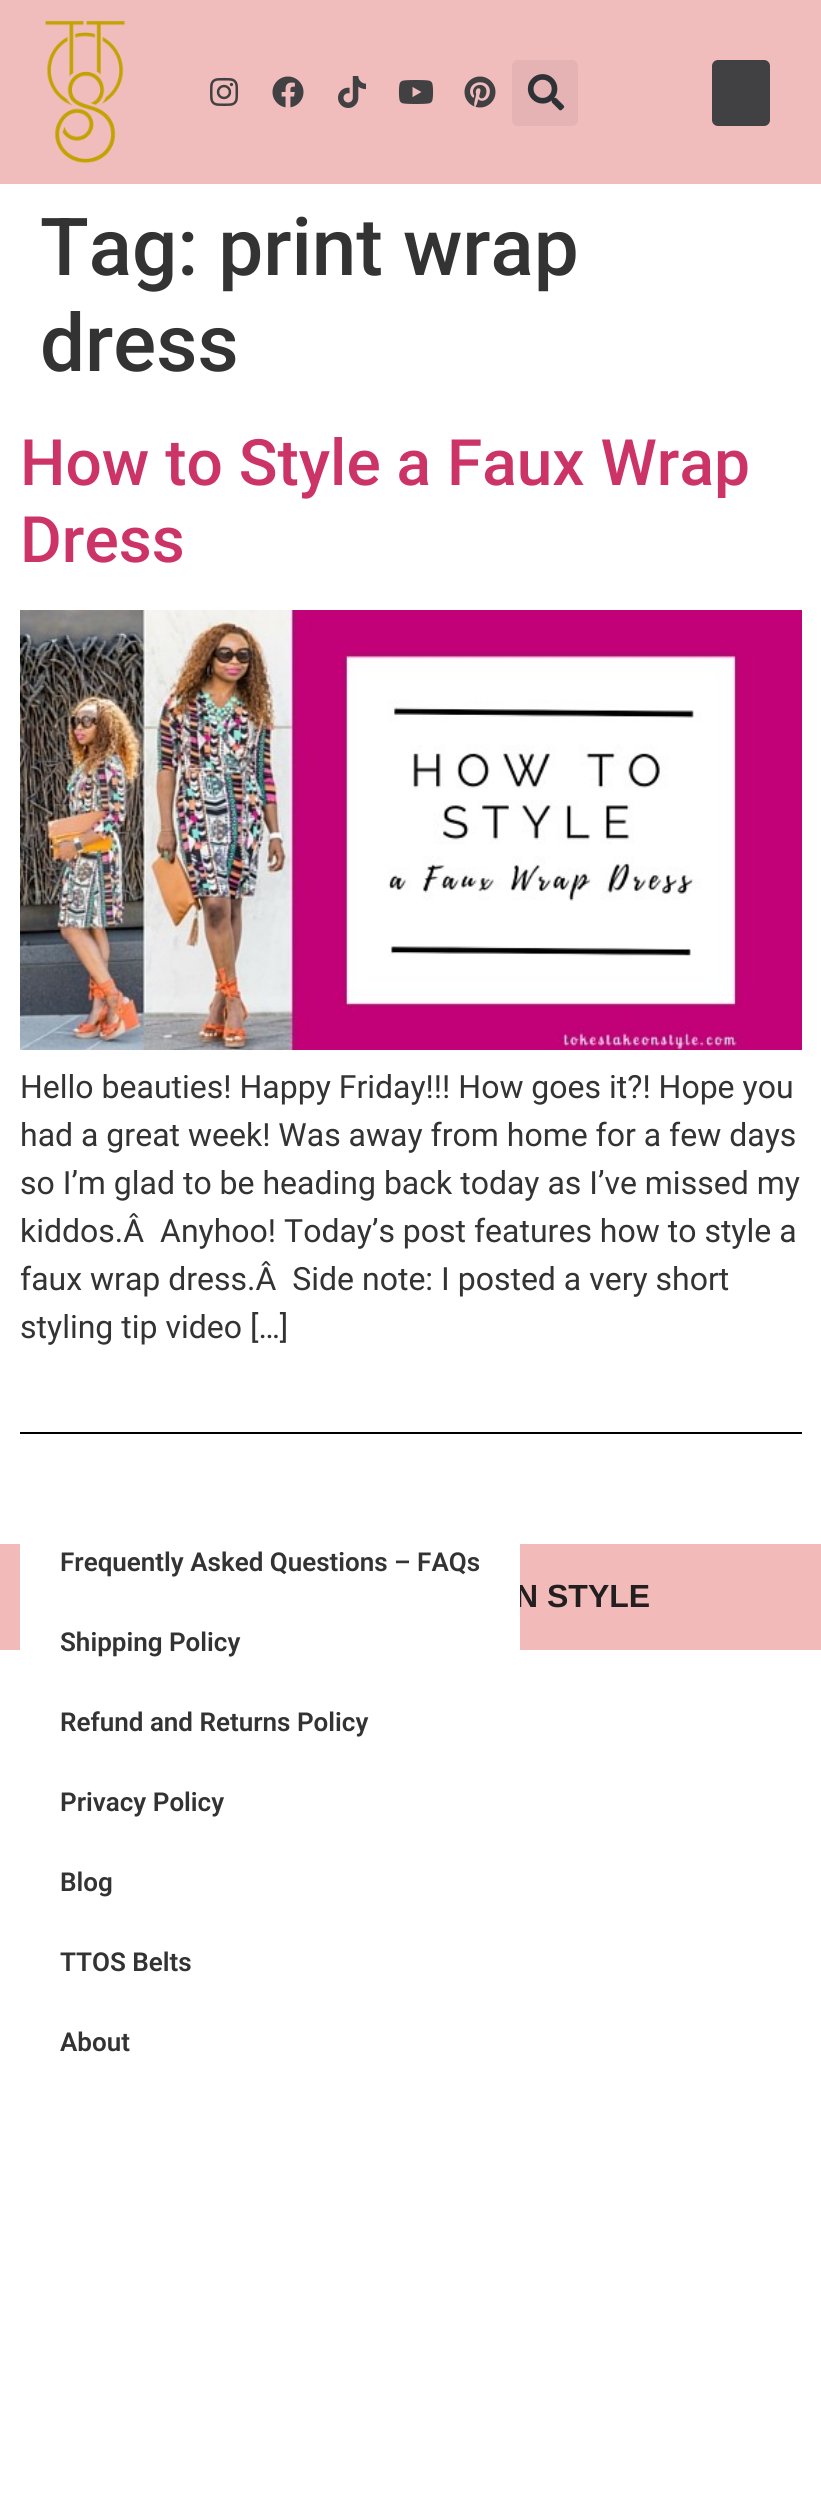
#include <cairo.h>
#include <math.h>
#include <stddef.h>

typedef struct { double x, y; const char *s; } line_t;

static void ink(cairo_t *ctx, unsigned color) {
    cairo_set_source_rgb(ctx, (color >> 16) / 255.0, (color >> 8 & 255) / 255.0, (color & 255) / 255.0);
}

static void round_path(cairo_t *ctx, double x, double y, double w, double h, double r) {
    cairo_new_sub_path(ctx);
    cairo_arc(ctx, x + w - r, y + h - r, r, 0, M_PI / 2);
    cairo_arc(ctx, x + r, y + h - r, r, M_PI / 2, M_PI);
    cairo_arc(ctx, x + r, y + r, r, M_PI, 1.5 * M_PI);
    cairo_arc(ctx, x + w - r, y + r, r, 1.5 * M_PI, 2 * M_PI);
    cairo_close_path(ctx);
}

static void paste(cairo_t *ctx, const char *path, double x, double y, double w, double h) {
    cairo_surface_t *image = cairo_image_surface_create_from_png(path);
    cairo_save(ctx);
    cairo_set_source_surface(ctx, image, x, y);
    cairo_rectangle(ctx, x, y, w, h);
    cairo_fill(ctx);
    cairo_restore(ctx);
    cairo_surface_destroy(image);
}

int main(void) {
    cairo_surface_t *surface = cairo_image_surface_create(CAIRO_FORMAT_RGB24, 821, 2513);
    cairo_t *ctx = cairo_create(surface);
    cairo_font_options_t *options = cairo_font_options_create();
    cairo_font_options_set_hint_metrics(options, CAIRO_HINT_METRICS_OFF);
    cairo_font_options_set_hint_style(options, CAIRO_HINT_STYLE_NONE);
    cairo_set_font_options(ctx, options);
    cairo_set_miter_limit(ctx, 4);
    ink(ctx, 0xFFFFFF);
    cairo_paint(ctx);
    ink(ctx, 0xF1BCBC);
    cairo_rectangle(ctx, 0, 0, 821, 184);
    cairo_fill(ctx);
    paste(ctx, "media/1.png", 45, 20, 81, 144);
    paste(ctx, "media/2.png", 210, 77, 29, 29);
    paste(ctx, "media/3.png", 272, 76, 32, 32);
    paste(ctx, "media/4.png", 338, 76, 28, 32);
    paste(ctx, "media/5.png", 398, 80, 36, 24);
    paste(ctx, "media/6.png", 464, 76, 32, 32);
    ink(ctx, 0xE5B3B3);
    round_path(ctx, 512, 60, 66, 66, 6);
    cairo_fill(ctx);
    paste(ctx, "media/7.png", 527, 74, 38, 37);
    ink(ctx, 0x414042);
    round_path(ctx, 712, 60, 58, 66, 6);
    cairo_fill(ctx);
    cairo_select_font_face(ctx, "Roboto Medium", CAIRO_FONT_SLANT_NORMAL, CAIRO_FONT_WEIGHT_NORMAL);
    cairo_set_font_size(ctx, 80);
    ink(ctx, 0x333333);
    cairo_move_to(ctx, 40, 275);
    cairo_show_text(ctx, "Tag: print wrap");
    cairo_move_to(ctx, 40, 371);
    cairo_show_text(ctx, "dress");
    cairo_set_font_size(ctx, 64);
    ink(ctx, 0xCC3366);
    cairo_move_to(ctx, 20, 485);
    cairo_show_text(ctx, "How to Style a Faux Wrap");
    cairo_move_to(ctx, 20, 562);
    cairo_show_text(ctx, "Dress");
    paste(ctx, "media/8.png", 20, 610, 782, 440);
    cairo_select_font_face(ctx, "Roboto", CAIRO_FONT_SLANT_NORMAL, CAIRO_FONT_WEIGHT_NORMAL);
    cairo_set_font_size(ctx, 32);
    ink(ctx, 0x333333);
    {
        static const line_t items[] = {
            {20, 1098, "Hello beauties! Happy Friday!!! How goes it?! Hope you"},
            {20, 1146, "had a great week! Was away from home for a few days"},
            {20, 1194, "so I’m glad to be heading back today as I’ve missed my"},
            {20, 1242, "kiddos.Â  Anyhoo! Today’s post features how to style a"},
            {20, 1290, "faux wrap dress.Â  Side note: I posted a very short"},
            {20, 1338, "styling tip video […]"},
        };
        for (size_t i = 0; i < sizeof items / sizeof *items; i++) {
            cairo_move_to(ctx, items[i].x, items[i].y);
            cairo_show_text(ctx, items[i].s);
        }
    }
    ink(ctx, 0x000000);
    cairo_rectangle(ctx, 20, 1432, 782, 2);
    cairo_fill(ctx);
    ink(ctx, 0xF3BABA);
    cairo_rectangle(ctx, 0, 1544, 821, 106);
    cairo_fill(ctx);
    cairo_select_font_face(ctx, "Liberation Sans", CAIRO_FONT_SLANT_NORMAL, CAIRO_FONT_WEIGHT_BOLD);
    ink(ctx, 0x231F20);
    cairo_move_to(ctx, 515, 1607);
    cairo_show_text(ctx, "N STYLE");
    ink(ctx, 0xFFFFFF);
    cairo_rectangle(ctx, 20, 1544, 500, 106);
    cairo_fill(ctx);
    cairo_select_font_face(ctx, "Roboto SemiBold", CAIRO_FONT_SLANT_NORMAL, CAIRO_FONT_WEIGHT_NORMAL);
    cairo_set_font_size(ctx, 26);
    ink(ctx, 0x333333);
    {
        static const line_t items[] = {
            {60, 1571, "Frequently Asked Questions – FAQs"},
            {60, 1651, "Shipping Policy"},
            {60, 1731, "Refund and Returns Policy"},
            {60, 1811, "Privacy Policy"},
            {60, 1891, "Blog"},
            {60, 1971, "TTOS Belts"},
            {60, 2051, "About"},
        };
        for (size_t i = 0; i < sizeof items / sizeof *items; i++) {
            cairo_move_to(ctx, items[i].x, items[i].y);
            cairo_show_text(ctx, items[i].s);
        }
    }
    cairo_surface_write_to_png(surface, "image.png");
    cairo_font_options_destroy(options);
    cairo_destroy(ctx);
    cairo_surface_destroy(surface);
    return 0;
}
